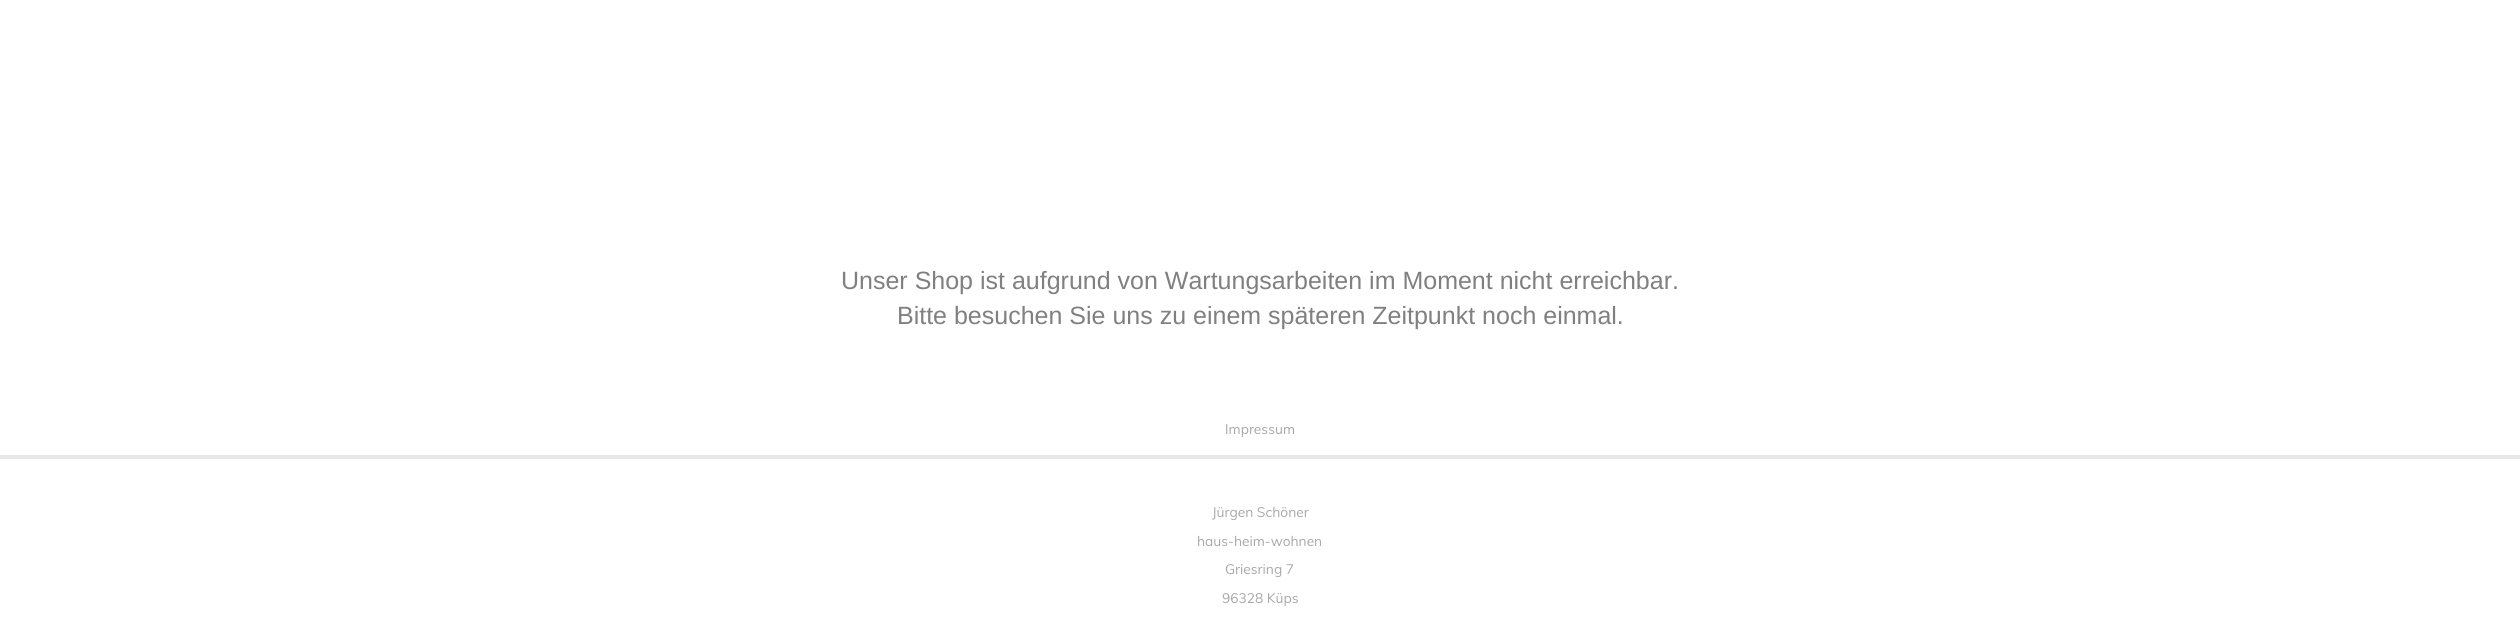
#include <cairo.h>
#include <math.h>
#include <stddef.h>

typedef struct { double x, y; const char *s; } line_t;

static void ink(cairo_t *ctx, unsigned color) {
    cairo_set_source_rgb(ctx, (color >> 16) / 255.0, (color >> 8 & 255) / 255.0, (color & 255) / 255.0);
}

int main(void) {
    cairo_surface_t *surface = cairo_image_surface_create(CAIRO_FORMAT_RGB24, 2520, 619);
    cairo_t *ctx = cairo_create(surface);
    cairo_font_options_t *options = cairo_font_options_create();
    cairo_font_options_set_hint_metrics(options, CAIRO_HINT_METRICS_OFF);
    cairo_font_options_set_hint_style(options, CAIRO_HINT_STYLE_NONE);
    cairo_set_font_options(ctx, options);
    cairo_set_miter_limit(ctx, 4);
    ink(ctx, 0xFFFFFF);
    cairo_paint(ctx);
    cairo_select_font_face(ctx, "Liberation Sans", CAIRO_FONT_SLANT_NORMAL, CAIRO_FONT_WEIGHT_NORMAL);
    cairo_set_font_size(ctx, 25);
    ink(ctx, 0x808080);
    cairo_move_to(ctx, 841, 289);
    cairo_show_text(ctx, "Unser Shop ist aufgrund von Wartungsarbeiten im Moment nicht erreichbar.");
    cairo_move_to(ctx, 897, 324);
    cairo_show_text(ctx, "Bitte besuchen Sie uns zu einem späteren Zeitpunkt noch einmal.");
    ink(ctx, 0xE7E7E7);
    cairo_rectangle(ctx, 0, 455, 2520, 4);
    cairo_fill(ctx);
    cairo_select_font_face(ctx, "Muli", CAIRO_FONT_SLANT_NORMAL, CAIRO_FONT_WEIGHT_NORMAL);
    cairo_set_font_size(ctx, 13.75);
    ink(ctx, 0xA9A8A8);
    {
        static const line_t items[] = {
            {1225, 434, "Impressum"},
            {1212, 517, "Jürgen Schöner"},
            {1197, 546, "haus-heim-wohnen"},
            {1225, 574, "Griesring 7"},
            {1222, 603, "96328 Küps"},
        };
        for (size_t i = 0; i < sizeof items / sizeof *items; i++) {
            cairo_move_to(ctx, items[i].x, items[i].y);
            cairo_show_text(ctx, items[i].s);
        }
    }
    cairo_surface_write_to_png(surface, "image.png");
    cairo_font_options_destroy(options);
    cairo_destroy(ctx);
    cairo_surface_destroy(surface);
    return 0;
}
